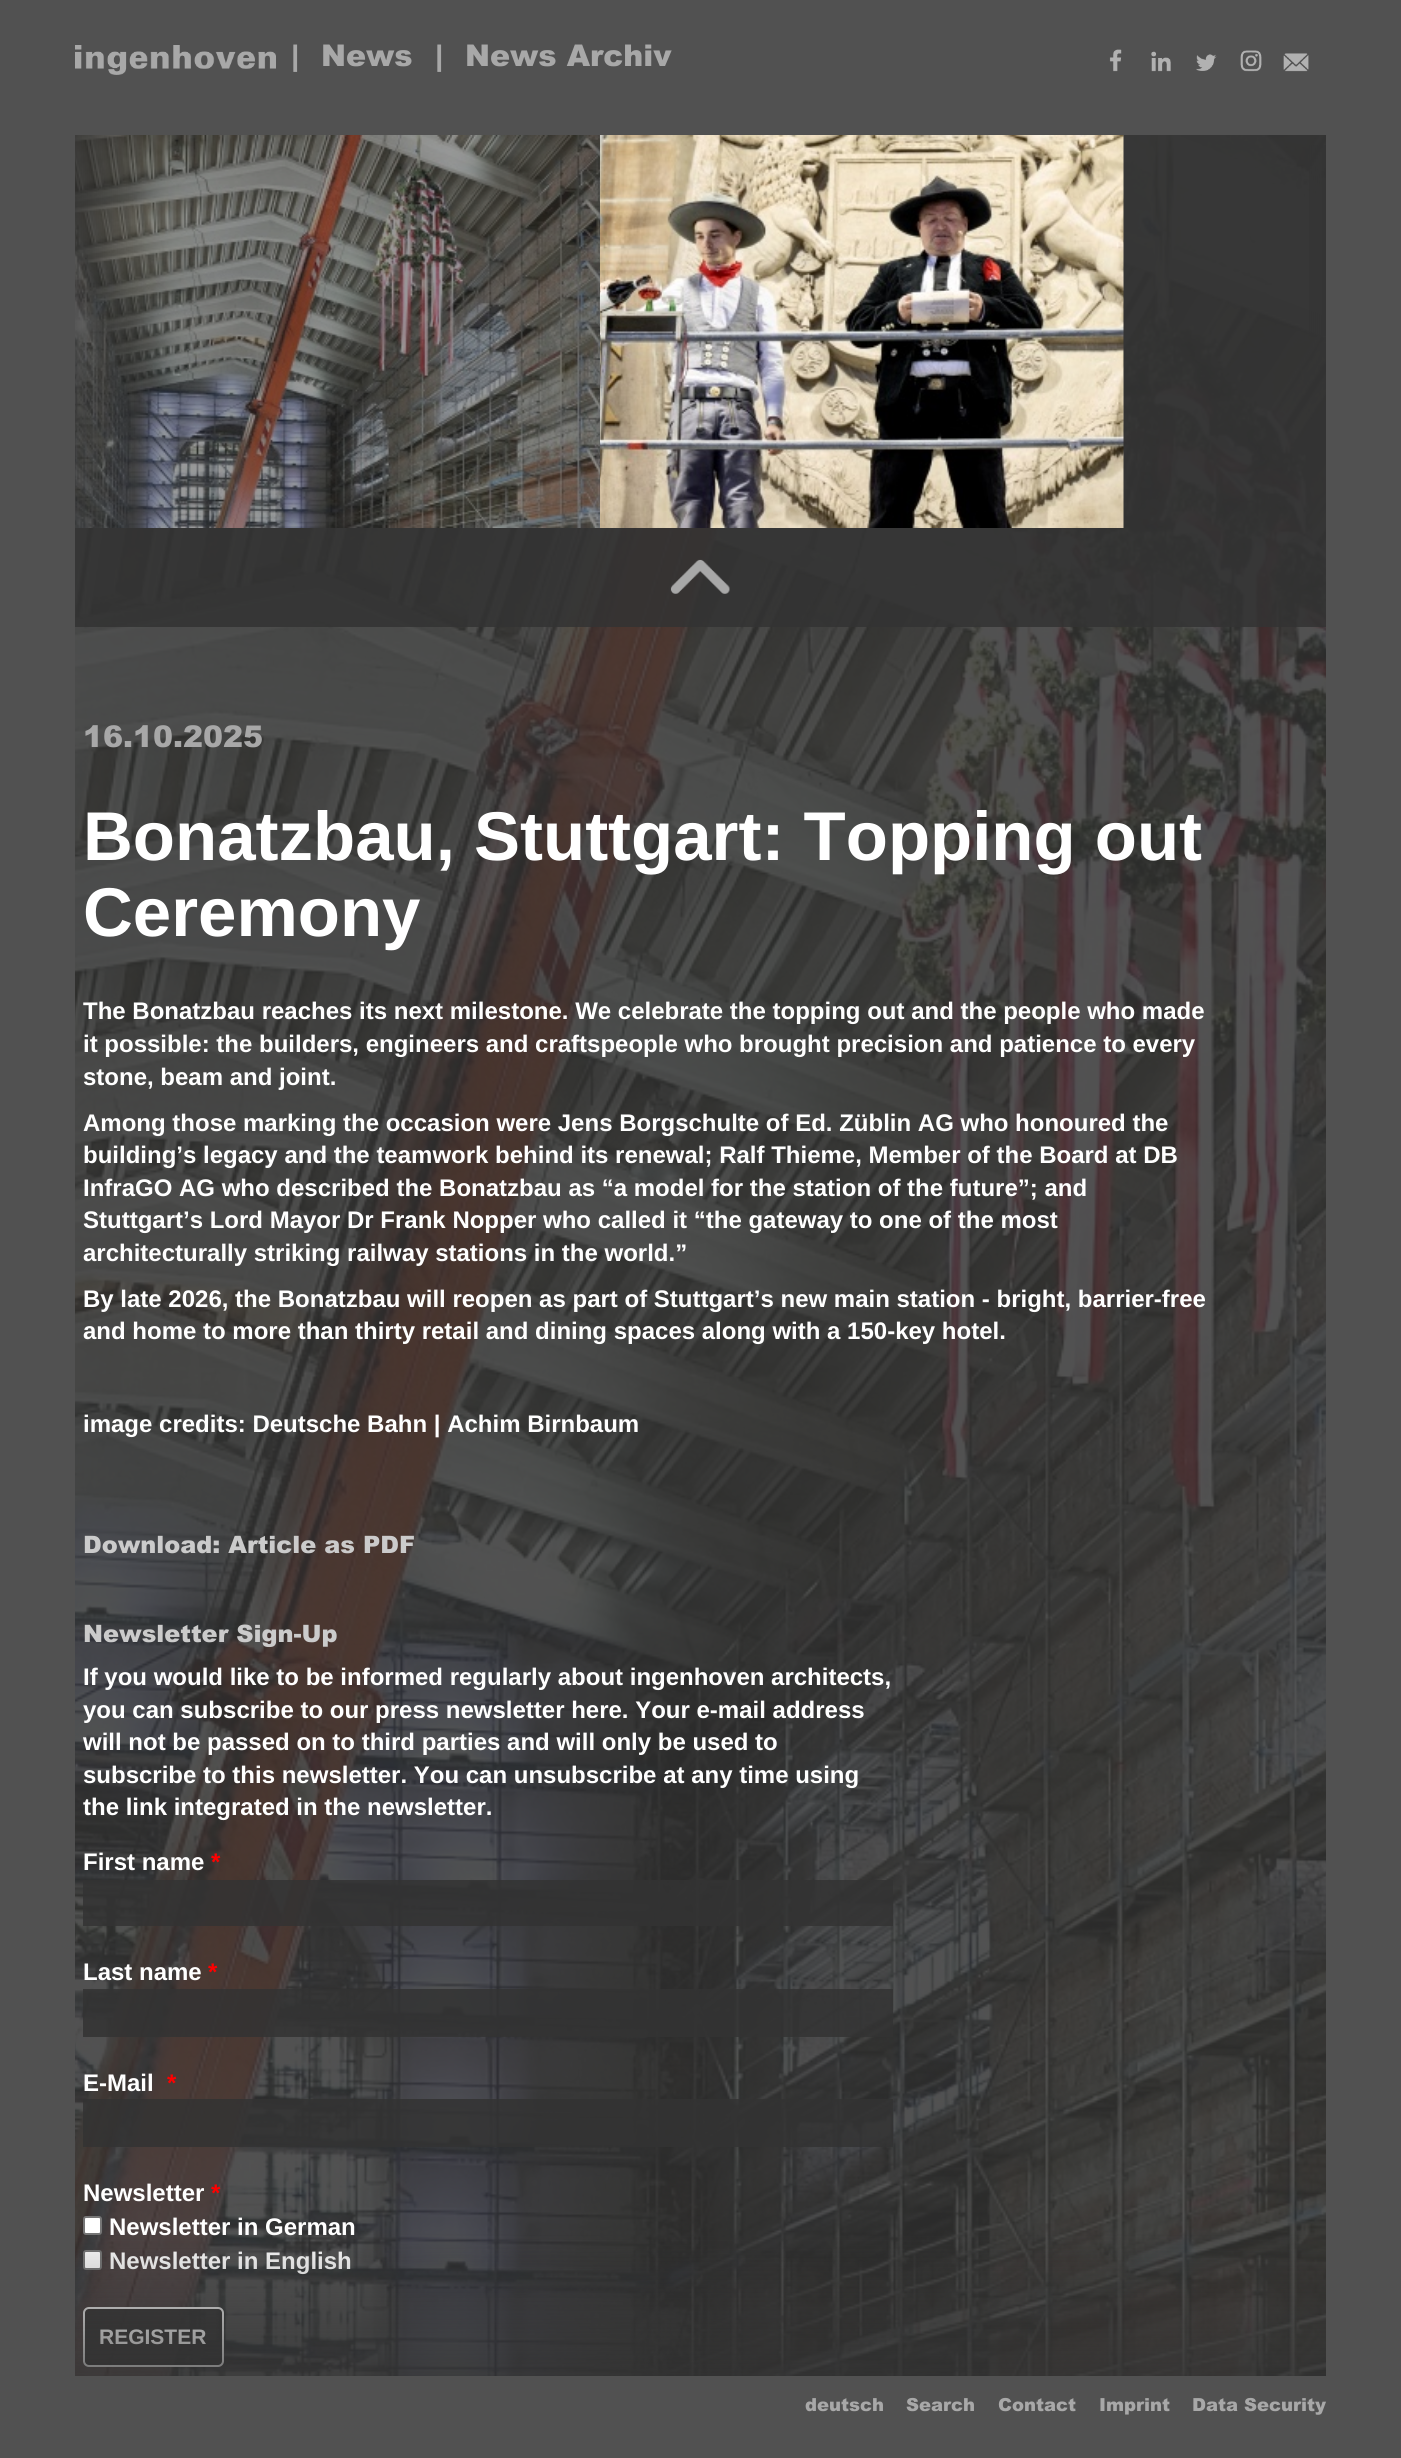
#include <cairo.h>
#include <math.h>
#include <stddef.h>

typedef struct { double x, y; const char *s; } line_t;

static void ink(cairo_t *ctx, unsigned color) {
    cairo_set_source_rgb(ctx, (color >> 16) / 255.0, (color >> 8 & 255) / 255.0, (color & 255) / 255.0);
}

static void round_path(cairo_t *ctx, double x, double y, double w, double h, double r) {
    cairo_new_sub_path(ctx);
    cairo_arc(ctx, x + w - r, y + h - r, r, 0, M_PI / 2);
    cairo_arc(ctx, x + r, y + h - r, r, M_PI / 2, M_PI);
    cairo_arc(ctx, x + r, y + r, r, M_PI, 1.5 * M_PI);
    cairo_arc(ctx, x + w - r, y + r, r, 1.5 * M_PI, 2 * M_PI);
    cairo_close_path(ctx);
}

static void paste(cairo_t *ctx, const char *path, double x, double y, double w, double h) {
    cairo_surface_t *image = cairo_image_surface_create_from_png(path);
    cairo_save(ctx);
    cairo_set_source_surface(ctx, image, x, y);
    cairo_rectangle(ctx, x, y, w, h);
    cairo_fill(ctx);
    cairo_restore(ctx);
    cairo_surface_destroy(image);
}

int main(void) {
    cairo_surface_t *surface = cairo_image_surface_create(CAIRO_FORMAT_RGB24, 1401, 2458);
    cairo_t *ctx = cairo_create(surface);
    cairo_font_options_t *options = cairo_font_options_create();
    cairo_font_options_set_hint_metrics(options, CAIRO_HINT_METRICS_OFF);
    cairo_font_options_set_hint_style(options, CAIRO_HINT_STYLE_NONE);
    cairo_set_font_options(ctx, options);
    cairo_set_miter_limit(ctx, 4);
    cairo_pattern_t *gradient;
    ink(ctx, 0x515151);
    cairo_paint(ctx);
    paste(ctx, "media/1.png", 75, 45, 201, 30);
    cairo_select_font_face(ctx, "Arial Black", CAIRO_FONT_SLANT_NORMAL, CAIRO_FONT_WEIGHT_NORMAL);
    cairo_set_font_size(ctx, 30);
    ink(ctx, 0xA8A8A8);
    {
        static const line_t items[] = {
            {291, 66, "|"},
            {321, 66, "News"},
            {435, 66, "|"},
            {465, 66, "News Archiv"},
        };
        for (size_t i = 0; i < sizeof items / sizeof *items; i++) {
            cairo_move_to(ctx, items[i].x, items[i].y);
            cairo_show_text(ctx, items[i].s);
        }
    }
    paste(ctx, "media/2.png", 1109, 49, 13, 23);
    paste(ctx, "media/3.png", 1151, 51, 20, 21);
    paste(ctx, "media/4.png", 1196, 54, 21, 17);
    paste(ctx, "media/5.png", 1240, 50, 22, 22);
    paste(ctx, "media/6.png", 1283, 53, 26, 19);
    paste(ctx, "media/7.png", 75, 135, 1251, 2241);
    cairo_set_source_rgba(ctx, 0.2, 0.2, 0.2, 0.85);
    cairo_rectangle(ctx, 75, 135, 1251, 492);
    cairo_fill(ctx);
    paste(ctx, "media/8.png", 75, 135, 525, 393);
    paste(ctx, "media/9.png", 600, 135, 524, 393);
    gradient = cairo_pattern_create_linear(1256, 332, 1326, 332);
    cairo_pattern_add_color_stop_rgba(gradient, 0, 0.2, 0.2, 0.2, 0);
    cairo_pattern_add_color_stop_rgba(gradient, 1, 0.2, 0.2, 0.2, 0.65);
    cairo_set_source(ctx, gradient);
    cairo_pattern_destroy(gradient);
    cairo_rectangle(ctx, 1309, 145, 17, 191);
    cairo_fill(ctx);
    paste(ctx, "media/10.png", 670, 559, 60, 35);
    ink(ctx, 0xA8A8A8);
    cairo_move_to(ctx, 83, 747);
    cairo_show_text(ctx, "16.10.2025");
    cairo_select_font_face(ctx, "Liberation Sans", CAIRO_FONT_SLANT_NORMAL, CAIRO_FONT_WEIGHT_BOLD);
    cairo_set_font_size(ctx, 69);
    ink(ctx, 0xFFFFFF);
    cairo_move_to(ctx, 83, 860);
    cairo_show_text(ctx, "Bonatzbau, Stuttgart: Topping out");
    cairo_move_to(ctx, 83, 936);
    cairo_show_text(ctx, "Ceremony");
    cairo_set_font_size(ctx, 24);
    {
        static const line_t items[] = {
            {83, 1019, "The Bonatzbau reaches its next milestone. We celebrate the topping out and the people who made"},
            {83, 1052, "it possible: the builders, engineers and craftspeople who brought precision and patience to every"},
            {83, 1085, "stone, beam and joint."},
            {83, 1131, "Among those marking the occasion were Jens Borgschulte of Ed. Züblin AG who honoured the"},
            {83, 1163, "building’s legacy and the teamwork behind its renewal; Ralf Thieme, Member of the Board at DB"},
            {83, 1196, "InfraGO AG who described the Bonatzbau as “a model for the station of the future”; and"},
            {83, 1228, "Stuttgart’s Lord Mayor Dr Frank Nopper who called it “the gateway to one of the most"},
            {83, 1261, "architecturally striking railway stations in the world.”"},
            {83, 1307, "By late 2026, the Bonatzbau will reopen as part of Stuttgart’s new main station - bright, barrier-free"},
            {83, 1339, "and home to more than thirty retail and dining spaces along with a 150-key hotel."},
            {83, 1432, "image credits: Deutsche Bahn | Achim Birnbaum"},
        };
        for (size_t i = 0; i < sizeof items / sizeof *items; i++) {
            cairo_move_to(ctx, items[i].x, items[i].y);
            cairo_show_text(ctx, items[i].s);
        }
    }
    cairo_select_font_face(ctx, "Arial Black", CAIRO_FONT_SLANT_NORMAL, CAIRO_FONT_WEIGHT_NORMAL);
    ink(ctx, 0xCBCBCB);
    cairo_move_to(ctx, 83, 1553);
    cairo_show_text(ctx, "Download: Article as PDF");
    cairo_move_to(ctx, 83, 1642);
    cairo_show_text(ctx, "Newsletter Sign-Up");
    cairo_select_font_face(ctx, "Liberation Sans", CAIRO_FONT_SLANT_NORMAL, CAIRO_FONT_WEIGHT_BOLD);
    ink(ctx, 0xFFFFFF);
    {
        static const line_t items[] = {
            {83, 1685, "If you would like to be informed regularly about ingenhoven architects,"},
            {83, 1718, "you can subscribe to our press newsletter here. Your e-mail address"},
            {83, 1750, "will not be passed on to third parties and will only be used to"},
            {83, 1783, "subscribe to this newsletter. You can unsubscribe at any time using"},
            {83, 1815, "the link integrated in the newsletter."},
            {83, 1870, "First name"},
        };
        for (size_t i = 0; i < sizeof items / sizeof *items; i++) {
            cairo_move_to(ctx, items[i].x, items[i].y);
            cairo_show_text(ctx, items[i].s);
        }
    }
    ink(ctx, 0xFF0000);
    cairo_move_to(ctx, 211, 1870);
    cairo_show_text(ctx, "*");
    cairo_set_source_rgba(ctx, 0.2, 0.2, 0.2, 0.85);
    cairo_rectangle(ctx, 83, 1880, 810, 46);
    cairo_fill(ctx);
    ink(ctx, 0xFFFFFF);
    cairo_move_to(ctx, 83, 1980);
    cairo_show_text(ctx, "Last name");
    ink(ctx, 0xFF0000);
    cairo_move_to(ctx, 208, 1980);
    cairo_show_text(ctx, "*");
    cairo_set_source_rgba(ctx, 0.2, 0.2, 0.2, 0.85);
    cairo_rectangle(ctx, 83, 1989, 810, 48);
    cairo_fill(ctx);
    ink(ctx, 0xFFFFFF);
    cairo_move_to(ctx, 83, 2091);
    cairo_show_text(ctx, "E-Mail");
    ink(ctx, 0xFF0000);
    cairo_move_to(ctx, 167, 2091);
    cairo_show_text(ctx, "*");
    cairo_set_source_rgba(ctx, 0.2, 0.2, 0.2, 0.85);
    cairo_rectangle(ctx, 83, 2099, 810, 48);
    cairo_fill(ctx);
    ink(ctx, 0xFFFFFF);
    cairo_move_to(ctx, 83, 2201);
    cairo_show_text(ctx, "Newsletter");
    ink(ctx, 0xFF0000);
    cairo_move_to(ctx, 211, 2201);
    cairo_show_text(ctx, "*");
    ink(ctx, 0xFFFFFF);
    round_path(ctx, 84, 2217, 17, 17, 2);
    cairo_fill_preserve(ctx);
    ink(ctx, 0x767676);
    cairo_stroke(ctx);
    ink(ctx, 0xFFFFFF);
    cairo_move_to(ctx, 109, 2235);
    cairo_show_text(ctx, "Newsletter in German");
    round_path(ctx, 84, 2251, 17, 18, 2);
    cairo_fill_preserve(ctx);
    ink(ctx, 0x767676);
    cairo_stroke(ctx);
    ink(ctx, 0xFFFFFF);
    cairo_move_to(ctx, 109, 2269);
    cairo_show_text(ctx, "Newsletter in English");
    cairo_set_source_rgba(ctx, 0.2, 0.2, 0.2, 0.85);
    round_path(ctx, 84, 2308, 139, 58, 5);
    cairo_fill_preserve(ctx);
    ink(ctx, 0xEEEEEE);
    cairo_stroke(ctx);
    cairo_set_font_size(ctx, 21);
    ink(ctx, 0xFFFFFF);
    cairo_move_to(ctx, 99, 2344);
    cairo_show_text(ctx, "REGISTER");
    gradient = cairo_pattern_create_linear(701, 2229, 701, 2376);
    cairo_pattern_add_color_stop_rgba(gradient, 0, 0.2, 0.2, 0.2, 0);
    cairo_pattern_add_color_stop_rgba(gradient, 1, 0.2, 0.2, 0.2, 0.65);
    cairo_set_source(ctx, gradient);
    cairo_pattern_destroy(gradient);
    cairo_rectangle(ctx, 75, 2234, 1251, 142);
    cairo_fill(ctx);
    cairo_select_font_face(ctx, "Arial Black", CAIRO_FONT_SLANT_NORMAL, CAIRO_FONT_WEIGHT_NORMAL);
    cairo_set_font_size(ctx, 18);
    ink(ctx, 0xA8A8A8);
    {
        static const line_t items[] = {
            {805, 2411, "deutsch"},
            {906, 2411, "Search"},
            {998, 2411, "Contact"},
            {1099, 2411, "Imprint"},
            {1192, 2411, "Data Security"},
        };
        for (size_t i = 0; i < sizeof items / sizeof *items; i++) {
            cairo_move_to(ctx, items[i].x, items[i].y);
            cairo_show_text(ctx, items[i].s);
        }
    }
    cairo_surface_write_to_png(surface, "image.png");
    cairo_font_options_destroy(options);
    cairo_destroy(ctx);
    cairo_surface_destroy(surface);
    return 0;
}
